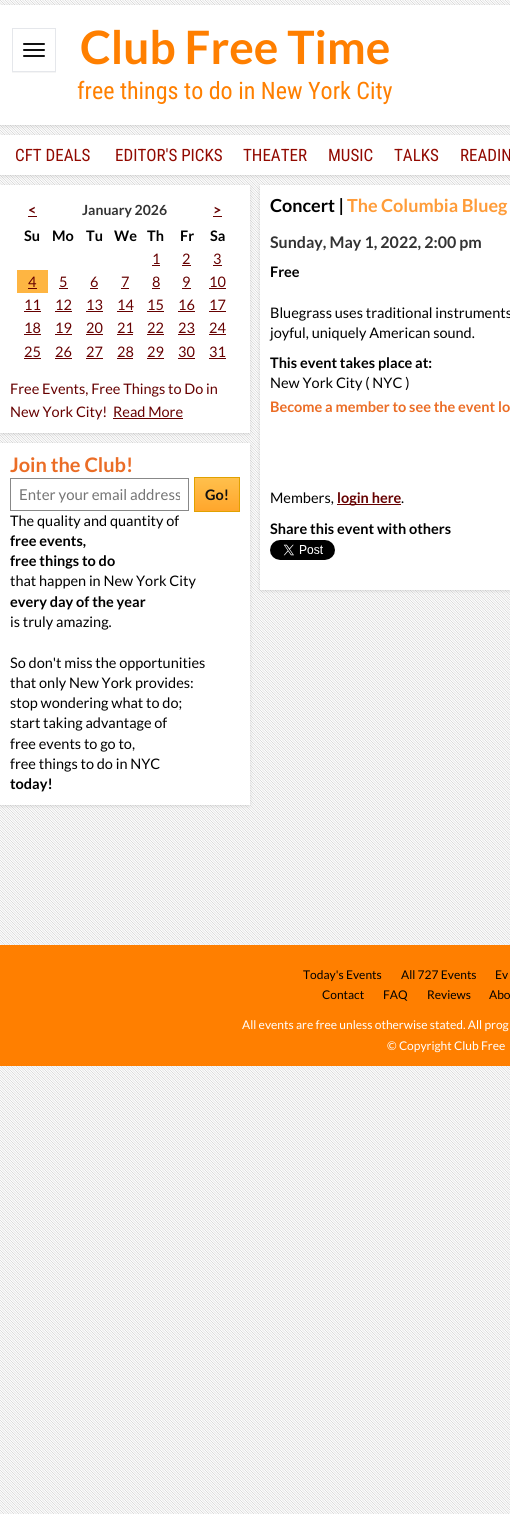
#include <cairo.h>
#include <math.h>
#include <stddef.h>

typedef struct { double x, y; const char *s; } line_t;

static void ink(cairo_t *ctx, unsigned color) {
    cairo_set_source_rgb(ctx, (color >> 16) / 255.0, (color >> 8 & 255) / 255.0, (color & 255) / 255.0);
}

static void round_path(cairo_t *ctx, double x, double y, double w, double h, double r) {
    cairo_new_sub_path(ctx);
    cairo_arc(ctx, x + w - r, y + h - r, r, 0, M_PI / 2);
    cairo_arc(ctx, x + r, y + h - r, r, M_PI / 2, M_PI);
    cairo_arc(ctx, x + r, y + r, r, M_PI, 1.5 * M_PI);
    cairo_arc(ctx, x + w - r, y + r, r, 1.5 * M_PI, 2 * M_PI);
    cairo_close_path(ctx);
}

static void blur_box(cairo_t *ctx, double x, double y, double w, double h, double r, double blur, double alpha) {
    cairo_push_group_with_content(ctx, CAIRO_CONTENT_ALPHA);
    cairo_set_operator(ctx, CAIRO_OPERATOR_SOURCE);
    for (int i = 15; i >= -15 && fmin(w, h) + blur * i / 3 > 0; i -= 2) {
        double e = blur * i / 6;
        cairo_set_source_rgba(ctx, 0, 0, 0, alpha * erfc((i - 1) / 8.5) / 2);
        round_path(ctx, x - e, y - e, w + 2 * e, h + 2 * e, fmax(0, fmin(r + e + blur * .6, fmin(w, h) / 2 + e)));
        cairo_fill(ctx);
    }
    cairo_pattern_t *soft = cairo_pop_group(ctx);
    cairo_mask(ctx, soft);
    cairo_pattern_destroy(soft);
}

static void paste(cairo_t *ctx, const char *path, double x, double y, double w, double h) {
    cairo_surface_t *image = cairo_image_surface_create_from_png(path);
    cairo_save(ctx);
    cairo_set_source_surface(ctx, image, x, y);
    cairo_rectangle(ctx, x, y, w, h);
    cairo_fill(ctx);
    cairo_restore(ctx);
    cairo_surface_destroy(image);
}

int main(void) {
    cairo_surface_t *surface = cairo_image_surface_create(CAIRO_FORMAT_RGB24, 510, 1514);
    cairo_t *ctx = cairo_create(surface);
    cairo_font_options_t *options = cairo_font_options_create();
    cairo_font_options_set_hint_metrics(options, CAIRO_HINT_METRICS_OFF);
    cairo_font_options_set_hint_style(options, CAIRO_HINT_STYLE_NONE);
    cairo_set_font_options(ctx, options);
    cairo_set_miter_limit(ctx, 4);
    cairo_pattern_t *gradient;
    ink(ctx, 0xFFFFFF);
    cairo_paint(ctx);
    paste(ctx, "media/1.png", 0, 0, 510, 1514);
    ink(ctx, 0x000000);
    blur_box(ctx, 1, 7, 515, 118, 0, 2, 0.2);
    ink(ctx, 0xFFFFFF);
    cairo_rectangle(ctx, 0, 5, 510, 120);
    cairo_fill(ctx);
    cairo_save(ctx);
    cairo_rectangle(ctx, 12, 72, 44, 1);
    cairo_clip(ctx);
    ink(ctx, 0x000000);
    blur_box(ctx, 12, 29, 44, 44, 0, 1, 0.06);
    cairo_restore(ctx);
    cairo_rectangle(ctx, 12.5, 28.5, 43, 43);
    ink(ctx, 0xE5E7EB);
    cairo_set_line_width(ctx, 1);
    cairo_stroke(ctx);
    ink(ctx, 0x111111);
    round_path(ctx, 23, 43, 22, 2, 1);
    cairo_fill(ctx);
    round_path(ctx, 23, 49, 22, 2, 1);
    cairo_fill(ctx);
    round_path(ctx, 23, 55, 22, 2, 1);
    cairo_fill(ctx);
    cairo_select_font_face(ctx, "Lato", CAIRO_FONT_SLANT_NORMAL, CAIRO_FONT_WEIGHT_BOLD);
    cairo_set_font_size(ctx, 46);
    ink(ctx, 0xFF7F00);
    cairo_move_to(ctx, 80, 64);
    cairo_show_text(ctx, "Club Free Time");
    cairo_select_font_face(ctx, "Roboto Condensed", CAIRO_FONT_SLANT_NORMAL, CAIRO_FONT_WEIGHT_NORMAL);
    cairo_set_font_size(ctx, 24);
    cairo_move_to(ctx, 77, 99);
    cairo_show_text(ctx, "free things to do in New York City");
    ink(ctx, 0x000000);
    blur_box(ctx, 1, 137, 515, 38, 0, 2, 0.2);
    ink(ctx, 0xFFFFFF);
    cairo_rectangle(ctx, 0, 135, 510, 40);
    cairo_fill(ctx);
    cairo_set_font_size(ctx, 17);
    ink(ctx, 0x910900);
    {
        static const line_t items[] = {
            {15, 161, "CFT DEALS"},
            {115, 161, "EDITOR'S PICKS"},
            {243, 161, "THEATER"},
            {328, 161, "MUSIC"},
            {394, 161, "TALKS"},
            {460, 161, "READIN"},
        };
        for (size_t i = 0; i < sizeof items / sizeof *items; i++) {
            cairo_move_to(ctx, items[i].x, items[i].y);
            cairo_show_text(ctx, items[i].s);
        }
    }
    ink(ctx, 0x000000);
    blur_box(ctx, 1, 187, 248, 246, 0, 2, 0.2);
    ink(ctx, 0xFFFFFF);
    cairo_rectangle(ctx, 0, 185, 250, 248);
    cairo_fill(ctx);
    cairo_select_font_face(ctx, "Lato", CAIRO_FONT_SLANT_NORMAL, CAIRO_FONT_WEIGHT_BOLD);
    cairo_set_font_size(ctx, 14.5);
    ink(ctx, 0x660000);
    cairo_move_to(ctx, 28, 215);
    cairo_show_text(ctx, "<");
    cairo_rectangle(ctx, 28, 216, 9, 1);
    cairo_fill(ctx);
    cairo_set_font_size(ctx, 14);
    ink(ctx, 0x333333);
    cairo_move_to(ctx, 82, 215);
    cairo_show_text(ctx, "January 2026");
    cairo_set_font_size(ctx, 14.5);
    ink(ctx, 0x660000);
    cairo_move_to(ctx, 213, 215);
    cairo_show_text(ctx, ">");
    cairo_rectangle(ctx, 213, 216, 9, 1);
    cairo_fill(ctx);
    ink(ctx, 0x000000);
    {
        static const line_t items[] = {
            {24, 241, "Su"},
            {52, 241, "Mo"},
            {86, 241, "Tu"},
            {114, 241, "We"},
            {147, 241, "Th"},
            {180, 241, "Fr"},
            {210, 241, "Sa"},
        };
        for (size_t i = 0; i < sizeof items / sizeof *items; i++) {
            cairo_move_to(ctx, items[i].x, items[i].y);
            cairo_show_text(ctx, items[i].s);
        }
    }
    cairo_select_font_face(ctx, "Lato", CAIRO_FONT_SLANT_NORMAL, CAIRO_FONT_WEIGHT_NORMAL);
    ink(ctx, 0x660000);
    cairo_move_to(ctx, 152, 264);
    cairo_show_text(ctx, "1");
    cairo_rectangle(ctx, 152, 265, 8, 1);
    cairo_fill(ctx);
    cairo_move_to(ctx, 182, 264);
    cairo_show_text(ctx, "2");
    cairo_rectangle(ctx, 182, 265, 9, 1);
    cairo_fill(ctx);
    cairo_move_to(ctx, 213, 264);
    cairo_show_text(ctx, "3");
    cairo_rectangle(ctx, 213, 265, 9, 1);
    cairo_fill(ctx);
    ink(ctx, 0xFEB542);
    cairo_rectangle(ctx, 17, 270, 31, 23);
    cairo_fill(ctx);
    ink(ctx, 0x660000);
    cairo_move_to(ctx, 28, 287);
    cairo_show_text(ctx, "4");
    cairo_rectangle(ctx, 28, 288, 9, 1);
    cairo_fill(ctx);
    cairo_move_to(ctx, 59, 287);
    cairo_show_text(ctx, "5");
    cairo_rectangle(ctx, 59, 288, 9, 1);
    cairo_fill(ctx);
    cairo_move_to(ctx, 90, 287);
    cairo_show_text(ctx, "6");
    cairo_rectangle(ctx, 90, 288, 8, 1);
    cairo_fill(ctx);
    cairo_move_to(ctx, 121, 287);
    cairo_show_text(ctx, "7");
    cairo_rectangle(ctx, 121, 288, 8, 1);
    cairo_fill(ctx);
    cairo_move_to(ctx, 152, 287);
    cairo_show_text(ctx, "8");
    cairo_rectangle(ctx, 152, 288, 8, 1);
    cairo_fill(ctx);
    cairo_move_to(ctx, 182, 287);
    cairo_show_text(ctx, "9");
    cairo_rectangle(ctx, 182, 288, 9, 1);
    cairo_fill(ctx);
    cairo_move_to(ctx, 209, 287);
    cairo_show_text(ctx, "10");
    cairo_rectangle(ctx, 209, 288, 17, 1);
    cairo_fill(ctx);
    cairo_move_to(ctx, 24, 310);
    cairo_show_text(ctx, "11");
    cairo_rectangle(ctx, 24, 311, 17, 1);
    cairo_fill(ctx);
    cairo_move_to(ctx, 55, 310);
    cairo_show_text(ctx, "12");
    cairo_rectangle(ctx, 55, 311, 17, 1);
    cairo_fill(ctx);
    cairo_move_to(ctx, 86, 310);
    cairo_show_text(ctx, "13");
    cairo_rectangle(ctx, 86, 311, 17, 1);
    cairo_fill(ctx);
    cairo_move_to(ctx, 117, 310);
    cairo_show_text(ctx, "14");
    cairo_rectangle(ctx, 117, 311, 16, 1);
    cairo_fill(ctx);
    cairo_move_to(ctx, 147, 310);
    cairo_show_text(ctx, "15");
    cairo_rectangle(ctx, 147, 311, 17, 1);
    cairo_fill(ctx);
    cairo_move_to(ctx, 178, 310);
    cairo_show_text(ctx, "16");
    cairo_rectangle(ctx, 178, 311, 17, 1);
    cairo_fill(ctx);
    cairo_move_to(ctx, 209, 310);
    cairo_show_text(ctx, "17");
    cairo_rectangle(ctx, 209, 311, 17, 1);
    cairo_fill(ctx);
    cairo_move_to(ctx, 24, 333);
    cairo_show_text(ctx, "18");
    cairo_rectangle(ctx, 24, 334, 17, 1);
    cairo_fill(ctx);
    cairo_move_to(ctx, 55, 333);
    cairo_show_text(ctx, "19");
    cairo_rectangle(ctx, 55, 334, 17, 1);
    cairo_fill(ctx);
    cairo_move_to(ctx, 86, 333);
    cairo_show_text(ctx, "20");
    cairo_rectangle(ctx, 86, 334, 17, 1);
    cairo_fill(ctx);
    cairo_move_to(ctx, 117, 333);
    cairo_show_text(ctx, "21");
    cairo_rectangle(ctx, 117, 334, 16, 1);
    cairo_fill(ctx);
    cairo_move_to(ctx, 147, 333);
    cairo_show_text(ctx, "22");
    cairo_rectangle(ctx, 147, 334, 17, 1);
    cairo_fill(ctx);
    cairo_move_to(ctx, 178, 333);
    cairo_show_text(ctx, "23");
    cairo_rectangle(ctx, 178, 334, 17, 1);
    cairo_fill(ctx);
    cairo_move_to(ctx, 209, 333);
    cairo_show_text(ctx, "24");
    cairo_rectangle(ctx, 209, 334, 17, 1);
    cairo_fill(ctx);
    cairo_move_to(ctx, 24, 357);
    cairo_show_text(ctx, "25");
    cairo_rectangle(ctx, 24, 358, 17, 1);
    cairo_fill(ctx);
    cairo_move_to(ctx, 55, 357);
    cairo_show_text(ctx, "26");
    cairo_rectangle(ctx, 55, 358, 17, 1);
    cairo_fill(ctx);
    cairo_move_to(ctx, 86, 357);
    cairo_show_text(ctx, "27");
    cairo_rectangle(ctx, 86, 358, 17, 1);
    cairo_fill(ctx);
    cairo_move_to(ctx, 117, 357);
    cairo_show_text(ctx, "28");
    cairo_rectangle(ctx, 117, 358, 16, 1);
    cairo_fill(ctx);
    cairo_move_to(ctx, 147, 357);
    cairo_show_text(ctx, "29");
    cairo_rectangle(ctx, 147, 358, 17, 1);
    cairo_fill(ctx);
    cairo_move_to(ctx, 178, 357);
    cairo_show_text(ctx, "30");
    cairo_rectangle(ctx, 178, 358, 17, 1);
    cairo_fill(ctx);
    cairo_move_to(ctx, 209, 357);
    cairo_show_text(ctx, "31");
    cairo_rectangle(ctx, 209, 358, 17, 1);
    cairo_fill(ctx);
    {
        static const line_t items[] = {
            {10, 394, "Free Events, Free Things to Do in"},
            {10, 417, "New York City!"},
            {113, 417, "Read More"},
        };
        for (size_t i = 0; i < sizeof items / sizeof *items; i++) {
            cairo_move_to(ctx, items[i].x, items[i].y);
            cairo_show_text(ctx, items[i].s);
        }
    }
    cairo_rectangle(ctx, 113, 418, 70, 1);
    cairo_fill(ctx);
    ink(ctx, 0x000000);
    blur_box(ctx, 1, 445, 248, 360, 0, 2, 0.2);
    ink(ctx, 0xFFFFFF);
    cairo_rectangle(ctx, 0, 443, 250, 362);
    cairo_fill(ctx);
    cairo_select_font_face(ctx, "Lato", CAIRO_FONT_SLANT_NORMAL, CAIRO_FONT_WEIGHT_BOLD);
    cairo_set_font_size(ctx, 20);
    ink(ctx, 0xEB6D26);
    cairo_move_to(ctx, 10, 472);
    cairo_show_text(ctx, "Join the Club!");
    cairo_rectangle(ctx, 10.5, 478.5, 178, 32);
    ink(ctx, 0x888888);
    cairo_stroke(ctx);
    cairo_save(ctx);
    cairo_rectangle(ctx, 19, 485, 161, 18);
    cairo_clip(ctx);
    cairo_select_font_face(ctx, "Lato", CAIRO_FONT_SLANT_NORMAL, CAIRO_FONT_WEIGHT_NORMAL);
    cairo_set_font_size(ctx, 15);
    ink(ctx, 0x757575);
    cairo_move_to(ctx, 19, 500);
    cairo_show_text(ctx, "Enter your email address");
    cairo_restore(ctx);
    gradient = cairo_pattern_create_linear(217, 478, 217, 511);
    cairo_pattern_add_color_stop_rgba(gradient, 0, 1, 0.753, 0.302, 1);
    cairo_pattern_add_color_stop_rgba(gradient, 1, 1, 0.651, 0.169, 1);
    cairo_set_source(ctx, gradient);
    cairo_pattern_destroy(gradient);
    cairo_rectangle(ctx, 195, 478, 44, 33);
    cairo_fill(ctx);
    cairo_rectangle(ctx, 194.5, 477.5, 45, 34);
    ink(ctx, 0xE0A100);
    cairo_stroke(ctx);
    cairo_set_font_size(ctx, 14.5);
    ink(ctx, 0x111111);
    cairo_move_to(ctx, 205, 500);
    cairo_show_text(ctx, "Go!");
    cairo_select_font_face(ctx, "Lato", CAIRO_FONT_SLANT_NORMAL, CAIRO_FONT_WEIGHT_NORMAL);
    ink(ctx, 0x000000);
    cairo_move_to(ctx, 10, 526);
    cairo_show_text(ctx, "The quality and quantity of");
    cairo_select_font_face(ctx, "Lato", CAIRO_FONT_SLANT_NORMAL, CAIRO_FONT_WEIGHT_BOLD);
    cairo_move_to(ctx, 10, 546);
    cairo_show_text(ctx, "free events,");
    cairo_move_to(ctx, 10, 566);
    cairo_show_text(ctx, "free things to do");
    cairo_select_font_face(ctx, "Lato", CAIRO_FONT_SLANT_NORMAL, CAIRO_FONT_WEIGHT_NORMAL);
    cairo_move_to(ctx, 10, 586);
    cairo_show_text(ctx, "that happen in New York City");
    cairo_select_font_face(ctx, "Lato", CAIRO_FONT_SLANT_NORMAL, CAIRO_FONT_WEIGHT_BOLD);
    cairo_move_to(ctx, 10, 607);
    cairo_show_text(ctx, "every day of the year");
    cairo_select_font_face(ctx, "Lato", CAIRO_FONT_SLANT_NORMAL, CAIRO_FONT_WEIGHT_NORMAL);
    {
        static const line_t items[] = {
            {10, 627, "is truly amazing."},
            {10, 668, "So don't miss the opportunities"},
            {10, 688, "that only New York provides:"},
            {10, 708, "stop wondering what to do;"},
            {10, 728, "start taking advantage of"},
            {10, 749, "free events to go to,"},
            {10, 769, "free things to do in NYC"},
        };
        for (size_t i = 0; i < sizeof items / sizeof *items; i++) {
            cairo_move_to(ctx, items[i].x, items[i].y);
            cairo_show_text(ctx, items[i].s);
        }
    }
    cairo_select_font_face(ctx, "Lato", CAIRO_FONT_SLANT_NORMAL, CAIRO_FONT_WEIGHT_BOLD);
    cairo_move_to(ctx, 10, 789);
    cairo_show_text(ctx, "today!");
    ink(ctx, 0x000000);
    blur_box(ctx, 261, 187, 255, 403, 0, 2, 0.2);
    ink(ctx, 0xFFFFFF);
    cairo_rectangle(ctx, 260, 185, 250, 405);
    cairo_fill(ctx);
    cairo_set_font_size(ctx, 18);
    ink(ctx, 0x000000);
    cairo_move_to(ctx, 270, 212);
    cairo_show_text(ctx, "Concert |");
    ink(ctx, 0xFF9C39);
    cairo_move_to(ctx, 347, 212);
    cairo_show_text(ctx, "The Columbia Blueg");
    cairo_set_font_size(ctx, 16);
    ink(ctx, 0x333333);
    cairo_move_to(ctx, 270, 248);
    cairo_show_text(ctx, "Sunday, May 1, 2022, 2:00 pm");
    cairo_set_font_size(ctx, 14.5);
    ink(ctx, 0x000000);
    cairo_move_to(ctx, 270, 277);
    cairo_show_text(ctx, "Free");
    cairo_select_font_face(ctx, "Lato", CAIRO_FONT_SLANT_NORMAL, CAIRO_FONT_WEIGHT_NORMAL);
    cairo_move_to(ctx, 270, 318);
    cairo_show_text(ctx, "Bluegrass uses traditional instruments");
    cairo_move_to(ctx, 270, 338);
    cairo_show_text(ctx, "joyful, uniquely American sound.");
    cairo_select_font_face(ctx, "Lato", CAIRO_FONT_SLANT_NORMAL, CAIRO_FONT_WEIGHT_BOLD);
    cairo_move_to(ctx, 270, 368);
    cairo_show_text(ctx, "This event takes place at:");
    cairo_select_font_face(ctx, "Lato", CAIRO_FONT_SLANT_NORMAL, CAIRO_FONT_WEIGHT_NORMAL);
    cairo_move_to(ctx, 270, 388);
    cairo_show_text(ctx, "New York City ( NYC )");
    cairo_select_font_face(ctx, "Lato", CAIRO_FONT_SLANT_NORMAL, CAIRO_FONT_WEIGHT_BOLD);
    ink(ctx, 0xEB6D26);
    cairo_move_to(ctx, 270, 412);
    cairo_show_text(ctx, "Become a member to see the event lo");
    cairo_select_font_face(ctx, "Lato", CAIRO_FONT_SLANT_NORMAL, CAIRO_FONT_WEIGHT_NORMAL);
    ink(ctx, 0x000000);
    cairo_move_to(ctx, 270, 503);
    cairo_show_text(ctx, "Members,");
    ink(ctx, 0x660000);
    cairo_rectangle(ctx, 337, 504, 64, 1);
    cairo_fill(ctx);
    cairo_select_font_face(ctx, "Lato", CAIRO_FONT_SLANT_NORMAL, CAIRO_FONT_WEIGHT_BOLD);
    cairo_move_to(ctx, 337, 503);
    cairo_show_text(ctx, "login here");
    cairo_select_font_face(ctx, "Lato", CAIRO_FONT_SLANT_NORMAL, CAIRO_FONT_WEIGHT_NORMAL);
    ink(ctx, 0x000000);
    cairo_move_to(ctx, 401, 503);
    cairo_show_text(ctx, ".");
    cairo_select_font_face(ctx, "Lato", CAIRO_FONT_SLANT_NORMAL, CAIRO_FONT_WEIGHT_BOLD);
    cairo_move_to(ctx, 270, 534);
    cairo_show_text(ctx, "Share this event with others");
    paste(ctx, "media/2.png", 270, 540, 65, 20);
    ink(ctx, 0xFF7F00);
    cairo_rectangle(ctx, 0, 945, 510, 121);
    cairo_fill(ctx);
    cairo_select_font_face(ctx, "Lato", CAIRO_FONT_SLANT_NORMAL, CAIRO_FONT_WEIGHT_NORMAL);
    cairo_set_font_size(ctx, 12);
    ink(ctx, 0x000000);
    {
        static const line_t items[] = {
            {303, 979, "Today's Events"},
            {401, 979, "All 727 Events"},
            {495, 979, "Ev"},
            {322, 999, "Contact"},
            {383, 999, "FAQ"},
            {427, 999, "Reviews"},
            {489, 999, "Abo"},
        };
        for (size_t i = 0; i < sizeof items / sizeof *items; i++) {
            cairo_move_to(ctx, items[i].x, items[i].y);
            cairo_show_text(ctx, items[i].s);
        }
    }
    ink(ctx, 0xFFFFFF);
    cairo_move_to(ctx, 242, 1029);
    cairo_show_text(ctx, "All events are free unless otherwise stated. All prog");
    cairo_move_to(ctx, 387, 1050);
    cairo_show_text(ctx, "© Copyright Club Free");
    cairo_surface_write_to_png(surface, "image.png");
    cairo_font_options_destroy(options);
    cairo_destroy(ctx);
    cairo_surface_destroy(surface);
    return 0;
}
